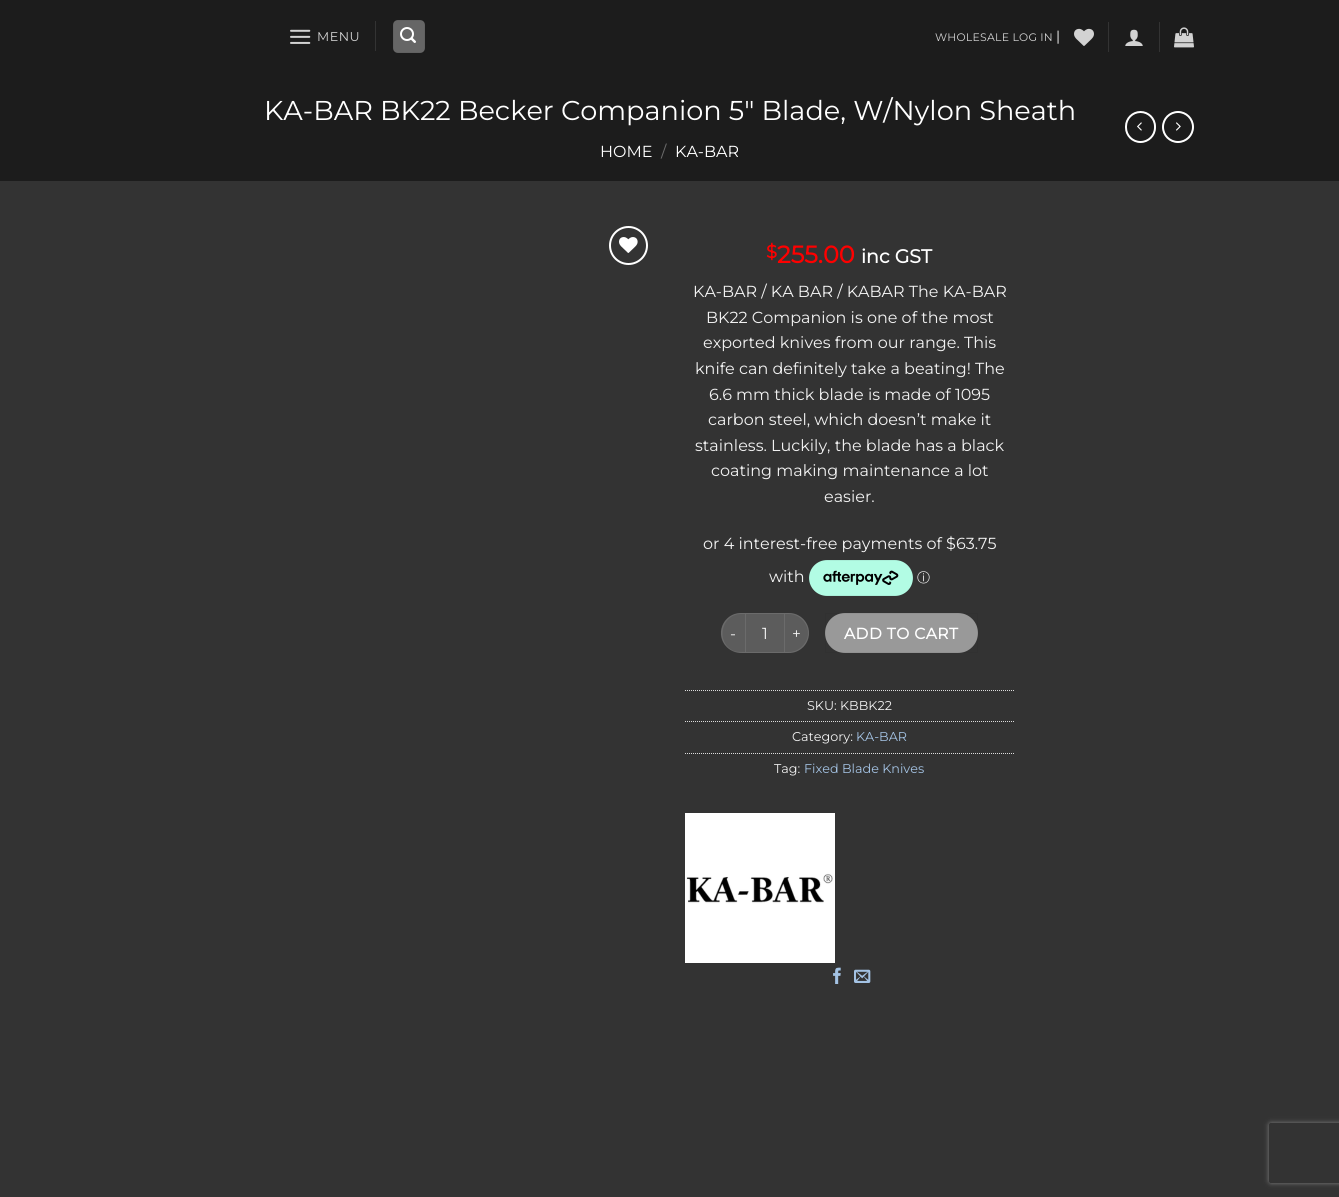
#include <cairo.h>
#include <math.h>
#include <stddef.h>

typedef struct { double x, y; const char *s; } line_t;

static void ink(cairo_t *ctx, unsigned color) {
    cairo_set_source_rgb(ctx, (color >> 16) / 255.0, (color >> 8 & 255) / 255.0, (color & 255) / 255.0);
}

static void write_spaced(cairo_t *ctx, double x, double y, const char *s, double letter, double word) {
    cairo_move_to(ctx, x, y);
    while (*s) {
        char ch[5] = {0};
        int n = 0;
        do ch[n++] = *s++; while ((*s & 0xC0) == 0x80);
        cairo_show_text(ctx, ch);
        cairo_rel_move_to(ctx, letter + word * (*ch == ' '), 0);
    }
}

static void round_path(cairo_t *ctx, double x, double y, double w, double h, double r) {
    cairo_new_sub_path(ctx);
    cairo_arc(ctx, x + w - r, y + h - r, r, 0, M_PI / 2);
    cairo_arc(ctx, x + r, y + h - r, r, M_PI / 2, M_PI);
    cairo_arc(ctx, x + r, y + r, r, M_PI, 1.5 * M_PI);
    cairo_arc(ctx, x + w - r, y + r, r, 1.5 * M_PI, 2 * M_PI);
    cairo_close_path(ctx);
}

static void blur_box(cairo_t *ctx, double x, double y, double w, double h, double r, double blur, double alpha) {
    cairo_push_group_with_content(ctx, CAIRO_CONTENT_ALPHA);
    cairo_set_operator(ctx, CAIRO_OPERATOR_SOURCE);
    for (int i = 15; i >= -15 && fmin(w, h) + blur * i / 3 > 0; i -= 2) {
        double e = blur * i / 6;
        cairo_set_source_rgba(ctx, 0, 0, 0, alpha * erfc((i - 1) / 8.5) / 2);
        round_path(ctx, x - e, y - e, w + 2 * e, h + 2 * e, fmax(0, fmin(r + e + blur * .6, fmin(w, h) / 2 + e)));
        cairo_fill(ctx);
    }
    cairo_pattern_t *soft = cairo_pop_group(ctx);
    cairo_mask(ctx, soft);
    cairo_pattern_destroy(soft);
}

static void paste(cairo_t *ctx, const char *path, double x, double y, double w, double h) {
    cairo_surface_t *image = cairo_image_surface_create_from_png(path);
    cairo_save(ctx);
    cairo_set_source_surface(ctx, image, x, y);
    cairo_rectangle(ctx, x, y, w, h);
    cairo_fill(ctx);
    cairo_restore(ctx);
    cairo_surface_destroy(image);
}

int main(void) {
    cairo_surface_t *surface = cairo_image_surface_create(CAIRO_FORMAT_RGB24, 1339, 1197);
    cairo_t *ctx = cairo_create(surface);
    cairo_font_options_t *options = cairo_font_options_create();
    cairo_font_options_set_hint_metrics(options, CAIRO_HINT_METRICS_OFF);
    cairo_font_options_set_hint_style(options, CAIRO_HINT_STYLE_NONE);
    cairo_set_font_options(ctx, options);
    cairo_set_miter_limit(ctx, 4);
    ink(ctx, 0x1C1C1C);
    cairo_paint(ctx);
    paste(ctx, "media/1.png", 290, 29, 21, 15);
    cairo_select_font_face(ctx, "Montserrat Thin", CAIRO_FONT_SLANT_NORMAL, CAIRO_FONT_WEIGHT_NORMAL);
    cairo_set_font_size(ctx, 12.75);
    ink(ctx, 0xD2D2D2);
    write_spaced(ctx, 317, 41, "MENU", 0.5, 0);
    ink(ctx, 0x333333);
    cairo_rectangle(ctx, 375, 21, 1, 30);
    cairo_fill(ctx);
    ink(ctx, 0x666666);
    round_path(ctx, 393, 20, 32, 33, 5);
    cairo_fill(ctx);
    cairo_rectangle(ctx, 393.5, 20.5, 31, 32);
    cairo_set_source_rgba(ctx, 0, 0, 0, 0.05);
    cairo_set_line_width(ctx, 1);
    cairo_stroke(ctx);
    paste(ctx, "media/2.png", 400, 27, 16, 16);
    cairo_set_font_size(ctx, 10.9);
    ink(ctx, 0xD2D2D2);
    write_spaced(ctx, 935, 41, "WHOLESALE LOG IN", 0.25, 0);
    cairo_set_font_size(ctx, 14);
    ink(ctx, 0xFFFFFF);
    cairo_move_to(ctx, 1056, 41);
    cairo_show_text(ctx, "|");
    paste(ctx, "media/3.png", 1074, 28, 20, 18);
    ink(ctx, 0x333333);
    cairo_rectangle(ctx, 1108, 22, 1, 30);
    cairo_fill(ctx);
    paste(ctx, "media/4.png", 1125, 29, 18, 17);
    cairo_rectangle(ctx, 1159, 22, 1, 30);
    cairo_fill(ctx);
    paste(ctx, "media/5.png", 1174, 27, 20, 21);
    cairo_set_font_size(ctx, 27.2);
    ink(ctx, 0xFFFFFF);
    cairo_move_to(ctx, 264, 120);
    cairo_show_text(ctx, "KA-BAR BK22 Becker Companion 5″ Blade, W/Nylon Sheath");
    cairo_set_font_size(ctx, 16);
    cairo_move_to(ctx, 600, 157);
    cairo_show_text(ctx, "HOME");
    ink(ctx, 0x6B6B6B);
    cairo_move_to(ctx, 661, 157);
    cairo_show_text(ctx, "/");
    ink(ctx, 0xFFFFFF);
    cairo_move_to(ctx, 675, 157);
    cairo_show_text(ctx, "KA-BAR");
    round_path(ctx, 1126, 112, 29, 30, 14.5);
    cairo_set_line_width(ctx, 2);
    cairo_stroke(ctx);
    paste(ctx, "media/6.png", 1137, 122, 5, 9);
    cairo_arc(ctx, 1178, 127, 15, 0, 2 * M_PI);
    cairo_stroke(ctx);
    paste(ctx, "media/7.png", 1176, 122, 5, 9);
    ink(ctx, 0x333333);
    cairo_rectangle(ctx, 0, 181, 1339, 1016);
    cairo_fill(ctx);
    cairo_arc(ctx, 628.5, 245.5, 18.5, 0, 2 * M_PI);
    ink(ctx, 0xFFFFFF);
    cairo_stroke(ctx);
    paste(ctx, "media/8.png", 619, 237, 19, 16);
    cairo_select_font_face(ctx, "Montserrat", CAIRO_FONT_SLANT_NORMAL, CAIRO_FONT_WEIGHT_BOLD);
    cairo_set_font_size(ctx, 18);
    ink(ctx, 0xFF0000);
    cairo_move_to(ctx, 766, 258);
    cairo_show_text(ctx, "$");
    cairo_set_font_size(ctx, 24);
    cairo_move_to(ctx, 777, 263);
    cairo_show_text(ctx, "255.00");
    cairo_set_font_size(ctx, 19);
    ink(ctx, 0xFFFFFF);
    cairo_move_to(ctx, 861, 263);
    cairo_show_text(ctx, "inc GST");
    cairo_select_font_face(ctx, "Montserrat Thin", CAIRO_FONT_SLANT_NORMAL, CAIRO_FONT_WEIGHT_NORMAL);
    cairo_set_font_size(ctx, 16);
    ink(ctx, 0xF1F1F1);
    {
        static const line_t items[] = {
            {693, 297, "KA-BAR / KA BAR / KABAR The KA-BAR"},
            {706, 323, "BK22 Companion is one of the most"},
            {703, 348, "exported knives from our range. This"},
            {695, 374, "knife can definitely take a beating! The"},
            {709, 400, "6.6 mm thick blade is made of 1095"},
            {708, 425, "carbon steel, which doesn’t make it"},
            {695, 451, "stainless. Luckily, the blade has a black"},
            {711, 476, "coating making maintenance a lot"},
            {824, 502, "easier."},
            {703, 549, "or 4 interest-free payments of $63.75"},
            {769, 582, "with"},
        };
        for (size_t i = 0; i < sizeof items / sizeof *items; i++) {
            cairo_move_to(ctx, items[i].x, items[i].y);
            cairo_show_text(ctx, items[i].s);
        }
    }
    paste(ctx, "media/9.png", 809, 560, 104, 36);
    cairo_select_font_face(ctx, "WenQuanYi Zen Hei Medium", CAIRO_FONT_SLANT_NORMAL, CAIRO_FONT_WEIGHT_NORMAL);
    cairo_set_font_size(ctx, 13);
    cairo_move_to(ctx, 917, 582);
    cairo_show_text(ctx, "ⓘ");
    ink(ctx, 0x5C5C5C);
    cairo_new_path(ctx);
    cairo_move_to(ctx, 741, 613);
    cairo_line_to(ctx, 745, 613);
    cairo_line_to(ctx, 745, 653);
    cairo_line_to(ctx, 741, 653);
    cairo_curve_to(ctx, 730, 653, 721, 644, 721, 633);
    cairo_curve_to(ctx, 721, 622, 730, 613, 741, 613);
    cairo_close_path(ctx);
    cairo_fill(ctx);
    cairo_set_source_rgba(ctx, 1, 1, 1, 0.09);
    cairo_set_fill_rule(ctx, CAIRO_FILL_RULE_EVEN_ODD);
    cairo_new_path(ctx);
    cairo_move_to(ctx, 741, 613);
    cairo_line_to(ctx, 745, 613);
    cairo_line_to(ctx, 745, 653);
    cairo_curve_to(ctx, 741, 653, 737, 653, 733, 651);
    cairo_curve_to(ctx, 713, 643, 719, 613, 741, 613);
    cairo_close_path(ctx);
    cairo_move_to(ctx, 741, 614);
    cairo_line_to(ctx, 745, 614);
    cairo_line_to(ctx, 745, 652);
    cairo_curve_to(ctx, 741, 652, 737, 652, 734, 651);
    cairo_curve_to(ctx, 715, 643, 721, 614, 741, 614);
    cairo_close_path(ctx);
    cairo_fill(ctx);
    cairo_select_font_face(ctx, "Montserrat Thin", CAIRO_FONT_SLANT_NORMAL, CAIRO_FONT_WEIGHT_NORMAL);
    cairo_set_font_size(ctx, 15.5);
    ink(ctx, 0xF1F1F1);
    write_spaced(ctx, 730, 639, "-", 0.5, 0);
    ink(ctx, 0x5C5C5C);
    cairo_rectangle(ctx, 745.5, 613.5, 39, 39);
    cairo_fill_preserve(ctx);
    ink(ctx, 0x6B6B6B);
    cairo_set_line_width(ctx, 1);
    cairo_stroke(ctx);
    cairo_set_font_size(ctx, 16);
    ink(ctx, 0xF1F1F1);
    cairo_move_to(ctx, 762, 639);
    cairo_show_text(ctx, "1");
    ink(ctx, 0x5C5C5C);
    cairo_new_path(ctx);
    cairo_move_to(ctx, 785, 613);
    cairo_line_to(ctx, 789, 613);
    cairo_curve_to(ctx, 800, 613, 809, 622, 809, 633);
    cairo_curve_to(ctx, 809, 644, 800, 653, 789, 653);
    cairo_line_to(ctx, 785, 653);
    cairo_close_path(ctx);
    cairo_fill(ctx);
    cairo_set_source_rgba(ctx, 1, 1, 1, 0.09);
    cairo_new_path(ctx);
    cairo_move_to(ctx, 785, 613);
    cairo_line_to(ctx, 789, 613);
    cairo_curve_to(ctx, 800, 613, 809, 622, 809, 633);
    cairo_curve_to(ctx, 809, 644, 800, 653, 789, 653);
    cairo_line_to(ctx, 785, 653);
    cairo_close_path(ctx);
    cairo_move_to(ctx, 785, 614);
    cairo_line_to(ctx, 789, 614);
    cairo_curve_to(ctx, 799, 614, 808, 623, 808, 633);
    cairo_curve_to(ctx, 808, 643, 799, 652, 789, 652);
    cairo_line_to(ctx, 785, 652);
    cairo_close_path(ctx);
    cairo_fill(ctx);
    cairo_set_font_size(ctx, 15.5);
    ink(ctx, 0xF1F1F1);
    write_spaced(ctx, 792, 639, "+", 0.5, 0);
    ink(ctx, 0x999999);
    round_path(ctx, 825, 613, 153, 40, 20);
    cairo_fill(ctx);
    cairo_rectangle(ctx, 825.5, 613.5, 152, 39);
    cairo_set_source_rgba(ctx, 0, 0, 0, 0.05);
    cairo_stroke(ctx);
    cairo_select_font_face(ctx, "Montserrat", CAIRO_FONT_SLANT_NORMAL, CAIRO_FONT_WEIGHT_BOLD);
    ink(ctx, 0xFFFFFF);
    write_spaced(ctx, 844, 639, "ADD TO CART", 0.5, 0);
    cairo_new_path(ctx);
    cairo_move_to(ctx, 685, 690.5);
    cairo_line_to(ctx, 1015, 690.5);
    ink(ctx, 0xDDDDDD);
    cairo_set_dash(ctx, (double[]){1, 1}, 2, 0);
    cairo_stroke(ctx);
    cairo_select_font_face(ctx, "Montserrat Thin", CAIRO_FONT_SLANT_NORMAL, CAIRO_FONT_WEIGHT_NORMAL);
    cairo_set_font_size(ctx, 12.75);
    ink(ctx, 0xF1F1F1);
    cairo_move_to(ctx, 807, 710);
    cairo_show_text(ctx, "SKU: KBBK22");
    cairo_new_path(ctx);
    cairo_move_to(ctx, 685, 721.5);
    cairo_line_to(ctx, 1015, 721.5);
    ink(ctx, 0xDDDDDD);
    cairo_stroke(ctx);
    ink(ctx, 0xF1F1F1);
    cairo_move_to(ctx, 792, 741);
    cairo_show_text(ctx, "Category:");
    ink(ctx, 0xA4C3E4);
    cairo_move_to(ctx, 856, 741);
    cairo_show_text(ctx, "KA-BAR");
    cairo_new_path(ctx);
    cairo_move_to(ctx, 685, 753.5);
    cairo_line_to(ctx, 1015, 753.5);
    ink(ctx, 0xDDDDDD);
    cairo_stroke(ctx);
    ink(ctx, 0xF1F1F1);
    cairo_move_to(ctx, 774, 773);
    cairo_show_text(ctx, "Tag:");
    ink(ctx, 0xA4C3E4);
    cairo_move_to(ctx, 804, 773);
    cairo_show_text(ctx, "Fixed Blade Knives");
    paste(ctx, "media/10.png", 685, 813, 150, 150);
    paste(ctx, "media/11.png", 833, 967, 8, 17);
    paste(ctx, "media/12.png", 854, 969, 17, 14);
    cairo_save(ctx);
    cairo_new_path(ctx);
    cairo_move_to(ctx, 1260, 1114);
    cairo_line_to(ctx, 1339, 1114);
    cairo_line_to(ctx, 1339, 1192);
    cairo_line_to(ctx, 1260, 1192);
    cairo_close_path(ctx);
    cairo_move_to(ctx, 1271, 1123);
    cairo_line_to(ctx, 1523, 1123);
    cairo_curve_to(ctx, 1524, 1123, 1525, 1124, 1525, 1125);
    cairo_line_to(ctx, 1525, 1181);
    cairo_curve_to(ctx, 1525, 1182, 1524, 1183, 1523, 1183);
    cairo_line_to(ctx, 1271, 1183);
    cairo_curve_to(ctx, 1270, 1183, 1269, 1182, 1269, 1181);
    cairo_line_to(ctx, 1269, 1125);
    cairo_curve_to(ctx, 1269, 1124, 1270, 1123, 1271, 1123);
    cairo_close_path(ctx);
    cairo_clip(ctx);
    ink(ctx, 0x808080);
    blur_box(ctx, 1269, 1123, 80, 60, 2, 2.5, 1);
    cairo_restore(ctx);
    cairo_surface_write_to_png(surface, "image.png");
    cairo_font_options_destroy(options);
    cairo_destroy(ctx);
    cairo_surface_destroy(surface);
    return 0;
}
